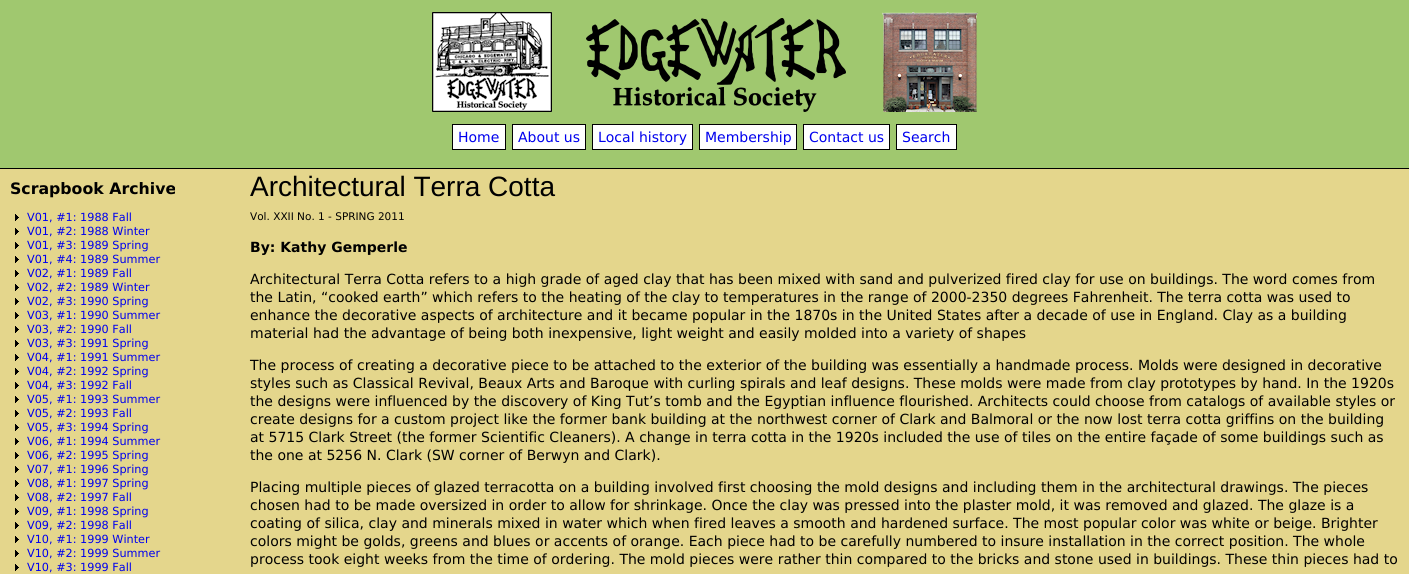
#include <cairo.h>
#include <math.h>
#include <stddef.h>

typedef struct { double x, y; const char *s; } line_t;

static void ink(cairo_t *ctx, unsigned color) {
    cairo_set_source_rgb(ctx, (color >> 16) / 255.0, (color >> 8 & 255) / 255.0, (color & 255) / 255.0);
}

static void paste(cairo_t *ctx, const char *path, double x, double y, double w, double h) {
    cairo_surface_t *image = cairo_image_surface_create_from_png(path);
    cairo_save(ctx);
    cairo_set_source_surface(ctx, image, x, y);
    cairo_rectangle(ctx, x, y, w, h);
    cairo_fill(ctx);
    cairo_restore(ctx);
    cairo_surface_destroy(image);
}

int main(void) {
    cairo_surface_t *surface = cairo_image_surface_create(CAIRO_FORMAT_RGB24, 1409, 574);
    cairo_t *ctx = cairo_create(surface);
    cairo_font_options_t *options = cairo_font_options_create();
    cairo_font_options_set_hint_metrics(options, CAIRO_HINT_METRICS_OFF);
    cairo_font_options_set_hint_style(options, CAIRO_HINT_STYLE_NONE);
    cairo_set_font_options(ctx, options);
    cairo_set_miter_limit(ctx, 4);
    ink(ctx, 0xA0C86F);
    cairo_paint(ctx);
    ink(ctx, 0x000000);
    cairo_rectangle(ctx, 0, 168, 1409, 1);
    cairo_fill(ctx);
    paste(ctx, "media/1.png", 432, 12, 546, 100);
    ink(ctx, 0xFFFFFF);
    cairo_rectangle(ctx, 452.5, 124.5, 53, 25);
    cairo_fill_preserve(ctx);
    ink(ctx, 0x000000);
    cairo_set_line_width(ctx, 1);
    cairo_stroke(ctx);
    cairo_select_font_face(ctx, "DejaVu Sans", CAIRO_FONT_SLANT_NORMAL, CAIRO_FONT_WEIGHT_NORMAL);
    cairo_set_font_size(ctx, 14);
    ink(ctx, 0x0000EE);
    cairo_move_to(ctx, 458, 142);
    cairo_show_text(ctx, "Home");
    ink(ctx, 0xFFFFFF);
    cairo_rectangle(ctx, 512.5, 124.5, 73, 25);
    cairo_fill_preserve(ctx);
    ink(ctx, 0x000000);
    cairo_stroke(ctx);
    ink(ctx, 0x0000EE);
    cairo_move_to(ctx, 518, 142);
    cairo_show_text(ctx, "About us");
    ink(ctx, 0xFFFFFF);
    cairo_rectangle(ctx, 592.5, 124.5, 100, 25);
    cairo_fill_preserve(ctx);
    ink(ctx, 0x000000);
    cairo_stroke(ctx);
    ink(ctx, 0x0000EE);
    cairo_move_to(ctx, 598, 142);
    cairo_show_text(ctx, "Local history");
    ink(ctx, 0xFFFFFF);
    cairo_rectangle(ctx, 699.5, 124.5, 97, 25);
    cairo_fill_preserve(ctx);
    ink(ctx, 0x000000);
    cairo_stroke(ctx);
    ink(ctx, 0x0000EE);
    cairo_move_to(ctx, 705, 142);
    cairo_show_text(ctx, "Membership");
    ink(ctx, 0xFFFFFF);
    cairo_rectangle(ctx, 803.5, 124.5, 86, 25);
    cairo_fill_preserve(ctx);
    ink(ctx, 0x000000);
    cairo_stroke(ctx);
    ink(ctx, 0x0000EE);
    cairo_move_to(ctx, 809, 142);
    cairo_show_text(ctx, "Contact us");
    ink(ctx, 0xFFFFFF);
    cairo_rectangle(ctx, 896.5, 124.5, 60, 25);
    cairo_fill_preserve(ctx);
    ink(ctx, 0x000000);
    cairo_stroke(ctx);
    ink(ctx, 0x0000EE);
    cairo_move_to(ctx, 902, 142);
    cairo_show_text(ctx, "Search");
    ink(ctx, 0xE4D68C);
    cairo_rectangle(ctx, 0, 169, 1409, 405);
    cairo_fill(ctx);
    cairo_select_font_face(ctx, "DejaVu Sans", CAIRO_FONT_SLANT_NORMAL, CAIRO_FONT_WEIGHT_BOLD);
    cairo_set_font_size(ctx, 15.75);
    ink(ctx, 0x000000);
    cairo_move_to(ctx, 10, 194);
    cairo_show_text(ctx, "Scrapbook Archive");
    paste(ctx, "media/2.png", 15, 214, 4, 7);
    cairo_select_font_face(ctx, "DejaVu Sans", CAIRO_FONT_SLANT_NORMAL, CAIRO_FONT_WEIGHT_NORMAL);
    cairo_set_font_size(ctx, 11.25);
    ink(ctx, 0x0000EE);
    cairo_move_to(ctx, 27, 221);
    cairo_show_text(ctx, "V01, #1: 1988 Fall");
    paste(ctx, "media/2.png", 15, 228, 4, 7);
    cairo_move_to(ctx, 27, 235);
    cairo_show_text(ctx, "V01, #2: 1988 Winter");
    paste(ctx, "media/2.png", 15, 242, 4, 7);
    cairo_move_to(ctx, 27, 249);
    cairo_show_text(ctx, "V01, #3: 1989 Spring");
    paste(ctx, "media/2.png", 15, 256, 4, 7);
    cairo_move_to(ctx, 27, 263);
    cairo_show_text(ctx, "V01, #4: 1989 Summer");
    paste(ctx, "media/2.png", 15, 270, 4, 7);
    cairo_move_to(ctx, 27, 277);
    cairo_show_text(ctx, "V02, #1: 1989 Fall");
    paste(ctx, "media/2.png", 15, 284, 4, 7);
    cairo_move_to(ctx, 27, 291);
    cairo_show_text(ctx, "V02, #2: 1989 Winter");
    paste(ctx, "media/2.png", 15, 298, 4, 7);
    cairo_move_to(ctx, 27, 305);
    cairo_show_text(ctx, "V02, #3: 1990 Spring");
    paste(ctx, "media/2.png", 15, 312, 4, 7);
    cairo_move_to(ctx, 27, 319);
    cairo_show_text(ctx, "V03, #1: 1990 Summer");
    paste(ctx, "media/2.png", 15, 326, 4, 7);
    cairo_move_to(ctx, 27, 333);
    cairo_show_text(ctx, "V03, #2: 1990 Fall");
    paste(ctx, "media/2.png", 15, 340, 4, 7);
    cairo_move_to(ctx, 27, 347);
    cairo_show_text(ctx, "V03, #3: 1991 Spring");
    paste(ctx, "media/2.png", 15, 354, 4, 7);
    cairo_move_to(ctx, 27, 361);
    cairo_show_text(ctx, "V04, #1: 1991 Summer");
    paste(ctx, "media/2.png", 15, 368, 4, 7);
    cairo_move_to(ctx, 27, 375);
    cairo_show_text(ctx, "V04, #2: 1992 Spring");
    paste(ctx, "media/2.png", 15, 382, 4, 7);
    cairo_move_to(ctx, 27, 389);
    cairo_show_text(ctx, "V04, #3: 1992 Fall");
    paste(ctx, "media/2.png", 15, 396, 4, 7);
    cairo_move_to(ctx, 27, 403);
    cairo_show_text(ctx, "V05, #1: 1993 Summer");
    paste(ctx, "media/2.png", 15, 410, 4, 7);
    cairo_move_to(ctx, 27, 417);
    cairo_show_text(ctx, "V05, #2: 1993 Fall");
    paste(ctx, "media/2.png", 15, 424, 4, 7);
    cairo_move_to(ctx, 27, 431);
    cairo_show_text(ctx, "V05, #3: 1994 Spring");
    paste(ctx, "media/2.png", 15, 438, 4, 7);
    cairo_move_to(ctx, 27, 445);
    cairo_show_text(ctx, "V06, #1: 1994 Summer");
    paste(ctx, "media/2.png", 15, 452, 4, 7);
    cairo_move_to(ctx, 27, 459);
    cairo_show_text(ctx, "V06, #2: 1995 Spring");
    paste(ctx, "media/2.png", 15, 466, 4, 7);
    cairo_move_to(ctx, 27, 473);
    cairo_show_text(ctx, "V07, #1: 1996 Spring");
    paste(ctx, "media/2.png", 15, 480, 4, 7);
    cairo_move_to(ctx, 27, 487);
    cairo_show_text(ctx, "V08, #1: 1997 Spring");
    paste(ctx, "media/2.png", 15, 494, 4, 7);
    cairo_move_to(ctx, 27, 501);
    cairo_show_text(ctx, "V08, #2: 1997 Fall");
    paste(ctx, "media/2.png", 15, 508, 4, 7);
    cairo_move_to(ctx, 27, 515);
    cairo_show_text(ctx, "V09, #1: 1998 Spring");
    paste(ctx, "media/2.png", 15, 522, 4, 7);
    cairo_move_to(ctx, 27, 529);
    cairo_show_text(ctx, "V09, #2: 1998 Fall");
    paste(ctx, "media/2.png", 15, 536, 4, 7);
    cairo_move_to(ctx, 27, 543);
    cairo_show_text(ctx, "V10, #1: 1999 Winter");
    paste(ctx, "media/2.png", 15, 550, 4, 7);
    cairo_move_to(ctx, 27, 557);
    cairo_show_text(ctx, "V10, #2: 1999 Summer");
    paste(ctx, "media/2.png", 15, 564, 4, 7);
    cairo_move_to(ctx, 27, 571);
    cairo_show_text(ctx, "V10, #3: 1999 Fall");
    cairo_select_font_face(ctx, "Liberation Sans", CAIRO_FONT_SLANT_NORMAL, CAIRO_FONT_WEIGHT_NORMAL);
    cairo_set_font_size(ctx, 28);
    ink(ctx, 0x000000);
    cairo_move_to(ctx, 250, 196);
    cairo_show_text(ctx, "Architectural Terra Cotta");
    cairo_select_font_face(ctx, "DejaVu Sans", CAIRO_FONT_SLANT_NORMAL, CAIRO_FONT_WEIGHT_NORMAL);
    cairo_set_font_size(ctx, 10.5);
    cairo_move_to(ctx, 250, 220);
    cairo_show_text(ctx, "Vol. XXII No. 1 - SPRING 2011");
    cairo_select_font_face(ctx, "DejaVu Sans", CAIRO_FONT_SLANT_NORMAL, CAIRO_FONT_WEIGHT_BOLD);
    cairo_set_font_size(ctx, 14);
    cairo_move_to(ctx, 250, 252);
    cairo_show_text(ctx, "By: Kathy Gemperle");
    cairo_select_font_face(ctx, "DejaVu Sans", CAIRO_FONT_SLANT_NORMAL, CAIRO_FONT_WEIGHT_NORMAL);
    {
        static const line_t items[] = {
            {250, 284, "Architectural Terra Cotta refers to a high grade of aged clay that has been mixed with sand and pulverized fired clay for use on buildings. The word comes from"},
            {250, 302, "the Latin, “cooked earth” which refers to the heating of the clay to temperatures in the range of 2000-2350 degrees Fahrenheit. The terra cotta was used to"},
            {250, 320, "enhance the decorative aspects of architecture and it became popular in the 1870s in the United States after a decade of use in England. Clay as a building"},
            {250, 338, "material had the advantage of being both inexpensive, light weight and easily molded into a variety of shapes"},
            {250, 370, "The process of creating a decorative piece to be attached to the exterior of the building was essentially a handmade process. Molds were designed in decorative"},
            {250, 388, "styles such as Classical Revival, Beaux Arts and Baroque with curling spirals and leaf designs. These molds were made from clay prototypes by hand. In the 1920s"},
            {250, 406, "the designs were influenced by the discovery of King Tut’s tomb and the Egyptian influence flourished. Architects could choose from catalogs of available styles or"},
            {250, 424, "create designs for a custom project like the former bank building at the northwest corner of Clark and Balmoral or the now lost terra cotta griffins on the building"},
            {250, 442, "at 5715 Clark Street (the former Scientific Cleaners). A change in terra cotta in the 1920s included the use of tiles on the entire façade of some buildings such as"},
            {250, 460, "the one at 5256 N. Clark (SW corner of Berwyn and Clark)."},
            {250, 492, "Placing multiple pieces of glazed terracotta on a building involved first choosing the mold designs and including them in the architectural drawings. The pieces"},
            {250, 510, "chosen had to be made oversized in order to allow for shrinkage. Once the clay was pressed into the plaster mold, it was removed and glazed. The glaze is a"},
            {250, 528, "coating of silica, clay and minerals mixed in water which when fired leaves a smooth and hardened surface. The most popular color was white or beige. Brighter"},
            {250, 546, "colors might be golds, greens and blues or accents of orange. Each piece had to be carefully numbered to insure installation in the correct position. The whole"},
            {250, 564, "process took eight weeks from the time of ordering. The mold pieces were rather thin compared to the bricks and stone used in buildings. These thin pieces had to"},
        };
        for (size_t i = 0; i < sizeof items / sizeof *items; i++) {
            cairo_move_to(ctx, items[i].x, items[i].y);
            cairo_show_text(ctx, items[i].s);
        }
    }
    cairo_surface_write_to_png(surface, "image.png");
    cairo_font_options_destroy(options);
    cairo_destroy(ctx);
    cairo_surface_destroy(surface);
    return 0;
}
